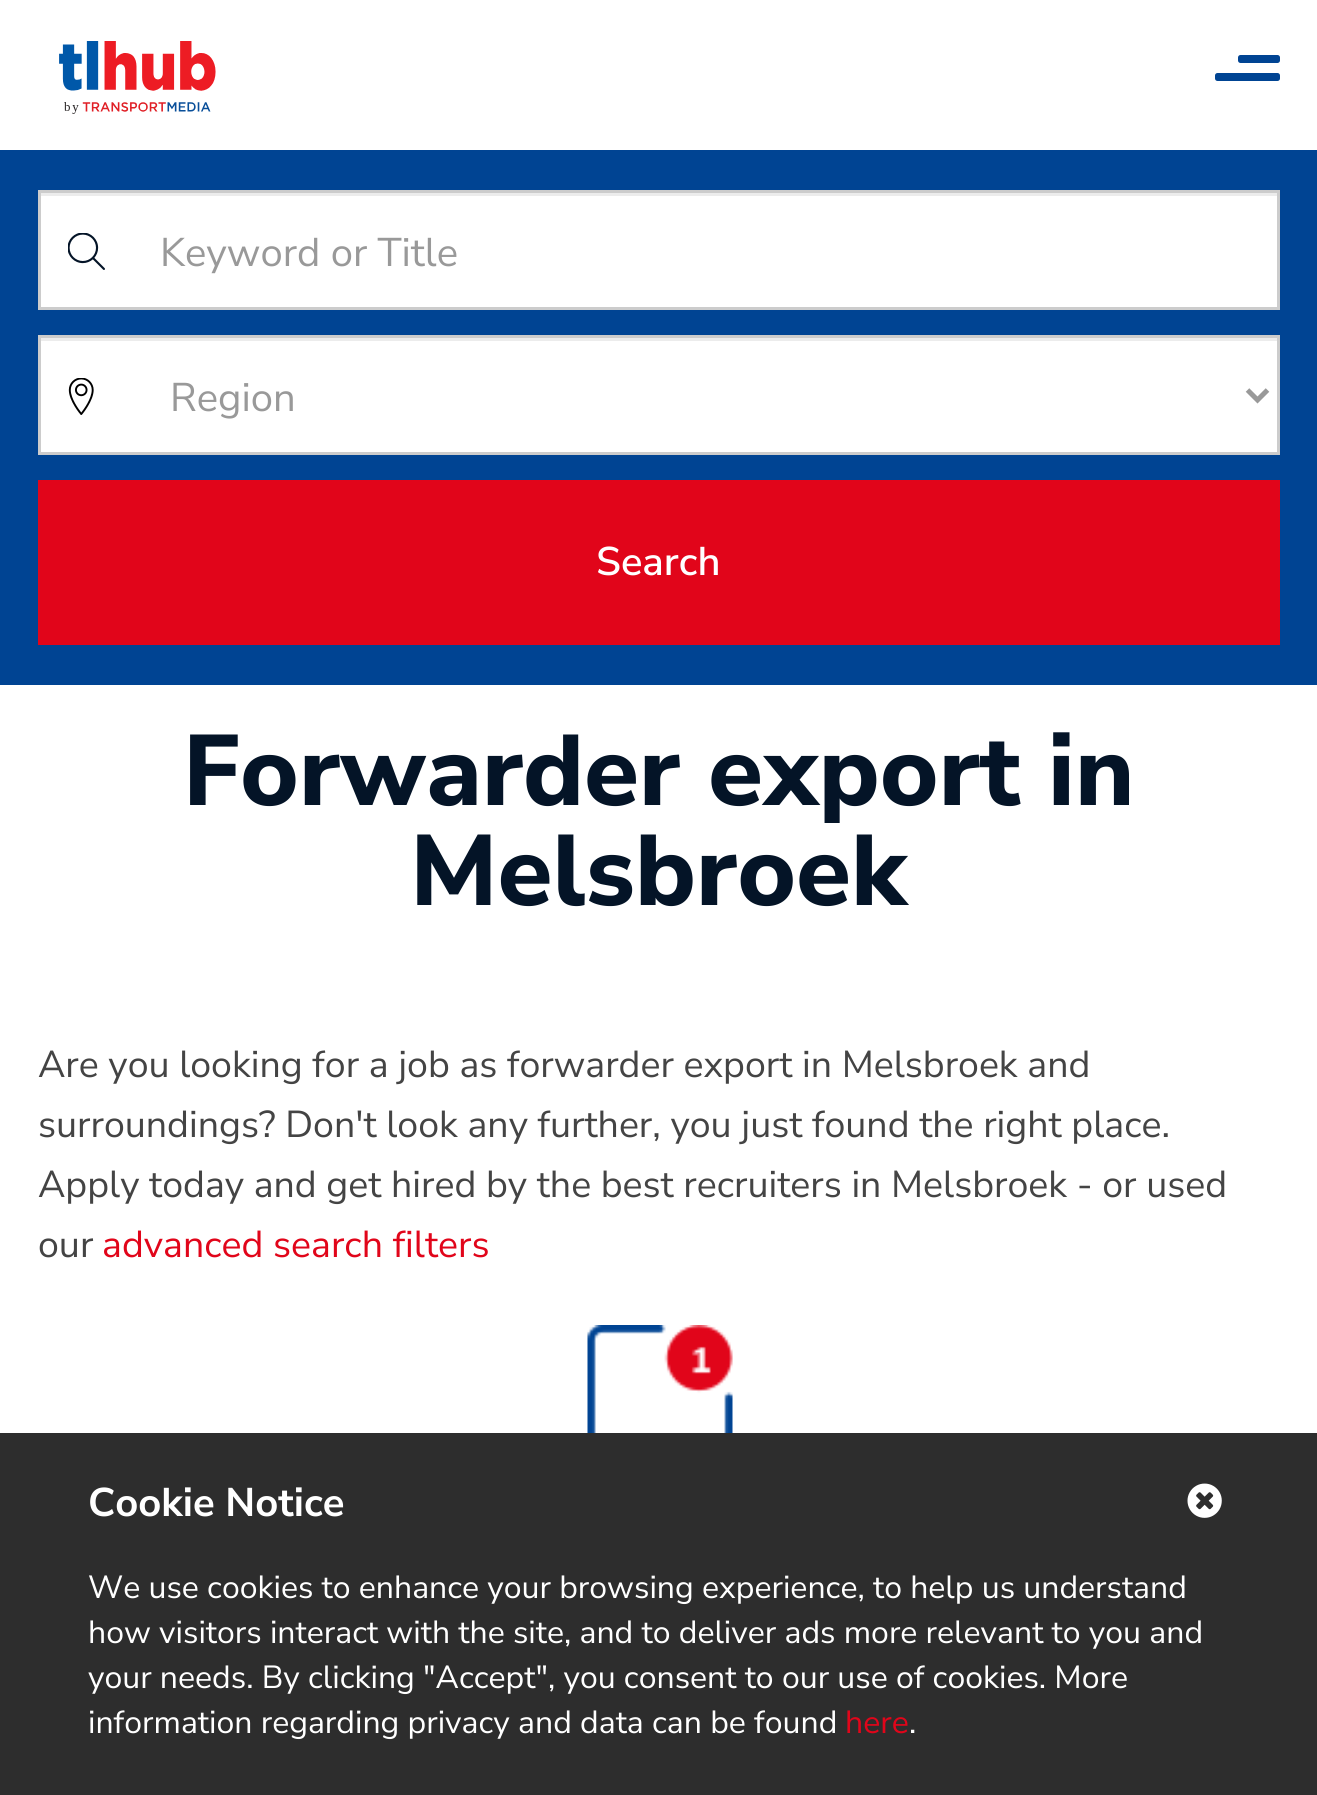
#include <cairo.h>
#include <math.h>
#include <stddef.h>

typedef struct { double x, y; const char *s; } line_t;

static void ink(cairo_t *ctx, unsigned color) {
    cairo_set_source_rgb(ctx, (color >> 16) / 255.0, (color >> 8 & 255) / 255.0, (color & 255) / 255.0);
}

static void round_path(cairo_t *ctx, double x, double y, double w, double h, double r) {
    cairo_new_sub_path(ctx);
    cairo_arc(ctx, x + w - r, y + h - r, r, 0, M_PI / 2);
    cairo_arc(ctx, x + r, y + h - r, r, M_PI / 2, M_PI);
    cairo_arc(ctx, x + r, y + r, r, M_PI, 1.5 * M_PI);
    cairo_arc(ctx, x + w - r, y + r, r, 1.5 * M_PI, 2 * M_PI);
    cairo_close_path(ctx);
}

static void paste(cairo_t *ctx, const char *path, double x, double y, double w, double h) {
    cairo_surface_t *image = cairo_image_surface_create_from_png(path);
    cairo_save(ctx);
    cairo_set_source_surface(ctx, image, x, y);
    cairo_rectangle(ctx, x, y, w, h);
    cairo_fill(ctx);
    cairo_restore(ctx);
    cairo_surface_destroy(image);
}

int main(void) {
    cairo_surface_t *surface = cairo_image_surface_create(CAIRO_FORMAT_RGB24, 1317, 1795);
    cairo_t *ctx = cairo_create(surface);
    cairo_font_options_t *options = cairo_font_options_create();
    cairo_font_options_set_hint_metrics(options, CAIRO_HINT_METRICS_OFF);
    cairo_font_options_set_hint_style(options, CAIRO_HINT_STYLE_NONE);
    cairo_set_font_options(ctx, options);
    cairo_set_miter_limit(ctx, 4);
    ink(ctx, 0xFFFFFF);
    cairo_paint(ctx);
    paste(ctx, "media/1.png", 59, 41, 157, 73);
    ink(ctx, 0x004493);
    round_path(ctx, 1238, 55, 42, 8, 2.5);
    cairo_fill(ctx);
    round_path(ctx, 1215, 73, 65, 8, 2.5);
    cairo_fill(ctx);
    cairo_rectangle(ctx, 0, 150, 1317, 535);
    cairo_fill(ctx);
    ink(ctx, 0xFFFFFF);
    cairo_rectangle(ctx, 41, 196, 1236, 111);
    cairo_fill(ctx);
    paste(ctx, "media/2.png", 68, 233, 37, 37);
    ink(ctx, 0xECECEC);
    cairo_rectangle(ctx, 40, 193, 1238, 3);
    cairo_fill(ctx);
    cairo_rectangle(ctx, 39.5, 191.5, 1239, 117);
    ink(ctx, 0xCCCCCC);
    cairo_set_line_width(ctx, 3);
    cairo_stroke(ctx);
    cairo_select_font_face(ctx, "Nunito Sans", CAIRO_FONT_SLANT_NORMAL, CAIRO_FONT_WEIGHT_NORMAL);
    cairo_set_font_size(ctx, 40);
    ink(ctx, 0x999999);
    cairo_move_to(ctx, 160, 266);
    cairo_show_text(ctx, "Keyword or Title");
    ink(ctx, 0xFFFFFF);
    cairo_rectangle(ctx, 41, 341, 1236, 111);
    cairo_fill(ctx);
    paste(ctx, "media/3.png", 68, 378, 26, 37);
    ink(ctx, 0xECECEC);
    cairo_rectangle(ctx, 40, 338, 1238, 3);
    cairo_fill(ctx);
    cairo_rectangle(ctx, 39.5, 336.5, 1239, 117);
    ink(ctx, 0xCCCCCC);
    cairo_stroke(ctx);
    cairo_new_path(ctx);
    cairo_move_to(ctx, 1247.5, 390);
    cairo_line_to(ctx, 1257.5, 400);
    cairo_line_to(ctx, 1267.5, 390);
    ink(ctx, 0x999999);
    cairo_set_line_width(ctx, 5);
    cairo_stroke(ctx);
    cairo_move_to(ctx, 170, 411);
    cairo_show_text(ctx, "Region");
    ink(ctx, 0xE1051A);
    cairo_rectangle(ctx, 38, 480, 1242, 165);
    cairo_fill(ctx);
    cairo_select_font_face(ctx, "Nunito Sans SemiBold", CAIRO_FONT_SLANT_NORMAL, CAIRO_FONT_WEIGHT_NORMAL);
    ink(ctx, 0xFFFFFF);
    cairo_move_to(ctx, 596, 575);
    cairo_show_text(ctx, "Search");
    cairo_select_font_face(ctx, "Nunito Sans ExtraBold", CAIRO_FONT_SLANT_NORMAL, CAIRO_FONT_WEIGHT_NORMAL);
    cairo_set_font_size(ctx, 100);
    ink(ctx, 0x041427);
    cairo_move_to(ctx, 183, 805);
    cairo_show_text(ctx, "Forwarder export in");
    cairo_move_to(ctx, 410, 905);
    cairo_show_text(ctx, "Melsbroek");
    cairo_select_font_face(ctx, "Nunito Sans", CAIRO_FONT_SLANT_NORMAL, CAIRO_FONT_WEIGHT_NORMAL);
    cairo_set_font_size(ctx, 37.5);
    ink(ctx, 0x444444);
    {
        static const line_t items[] = {
            {38, 1077, "Are you looking for a job as forwarder export in Melsbroek and"},
            {38, 1137, "surroundings? Don't look any further, you just found the right place."},
            {38, 1197, "Apply today and get hired by the best recruiters in Melsbroek - or used"},
            {38, 1257, "our"},
        };
        for (size_t i = 0; i < sizeof items / sizeof *items; i++) {
            cairo_move_to(ctx, items[i].x, items[i].y);
            cairo_show_text(ctx, items[i].s);
        }
    }
    ink(ctx, 0xE1051A);
    cairo_move_to(ctx, 102, 1257);
    cairo_show_text(ctx, "advanced search filters");
    paste(ctx, "media/4.png", 587, 1325, 146, 108);
    ink(ctx, 0x2D2D2D);
    cairo_rectangle(ctx, 0, 1433, 1317, 362);
    cairo_fill(ctx);
    cairo_select_font_face(ctx, "Nunito Sans", CAIRO_FONT_SLANT_NORMAL, CAIRO_FONT_WEIGHT_BOLD);
    cairo_set_font_size(ctx, 40);
    ink(ctx, 0xFFFFFF);
    cairo_move_to(ctx, 88, 1516);
    cairo_show_text(ctx, "Cookie Notice");
    paste(ctx, "media/5.png", 1187, 1483, 35, 35);
    cairo_select_font_face(ctx, "Nunito Sans", CAIRO_FONT_SLANT_NORMAL, CAIRO_FONT_WEIGHT_NORMAL);
    cairo_set_font_size(ctx, 32);
    {
        static const line_t items[] = {
            {88, 1598, "We use cookies to enhance your browsing experience, to help us understand"},
            {88, 1643, "how visitors interact with the site, and to deliver ads more relevant to you and"},
            {88, 1688, "your needs. By clicking \"Accept\", you consent to our use of cookies. More"},
            {88, 1733, "information regarding privacy and data can be found"},
        };
        for (size_t i = 0; i < sizeof items / sizeof *items; i++) {
            cairo_move_to(ctx, items[i].x, items[i].y);
            cairo_show_text(ctx, items[i].s);
        }
    }
    ink(ctx, 0xE1051A);
    cairo_move_to(ctx, 845, 1733);
    cairo_show_text(ctx, "here");
    ink(ctx, 0xFFFFFF);
    cairo_move_to(ctx, 909, 1733);
    cairo_show_text(ctx, ".");
    cairo_surface_write_to_png(surface, "image.png");
    cairo_font_options_destroy(options);
    cairo_destroy(ctx);
    cairo_surface_destroy(surface);
    return 0;
}
